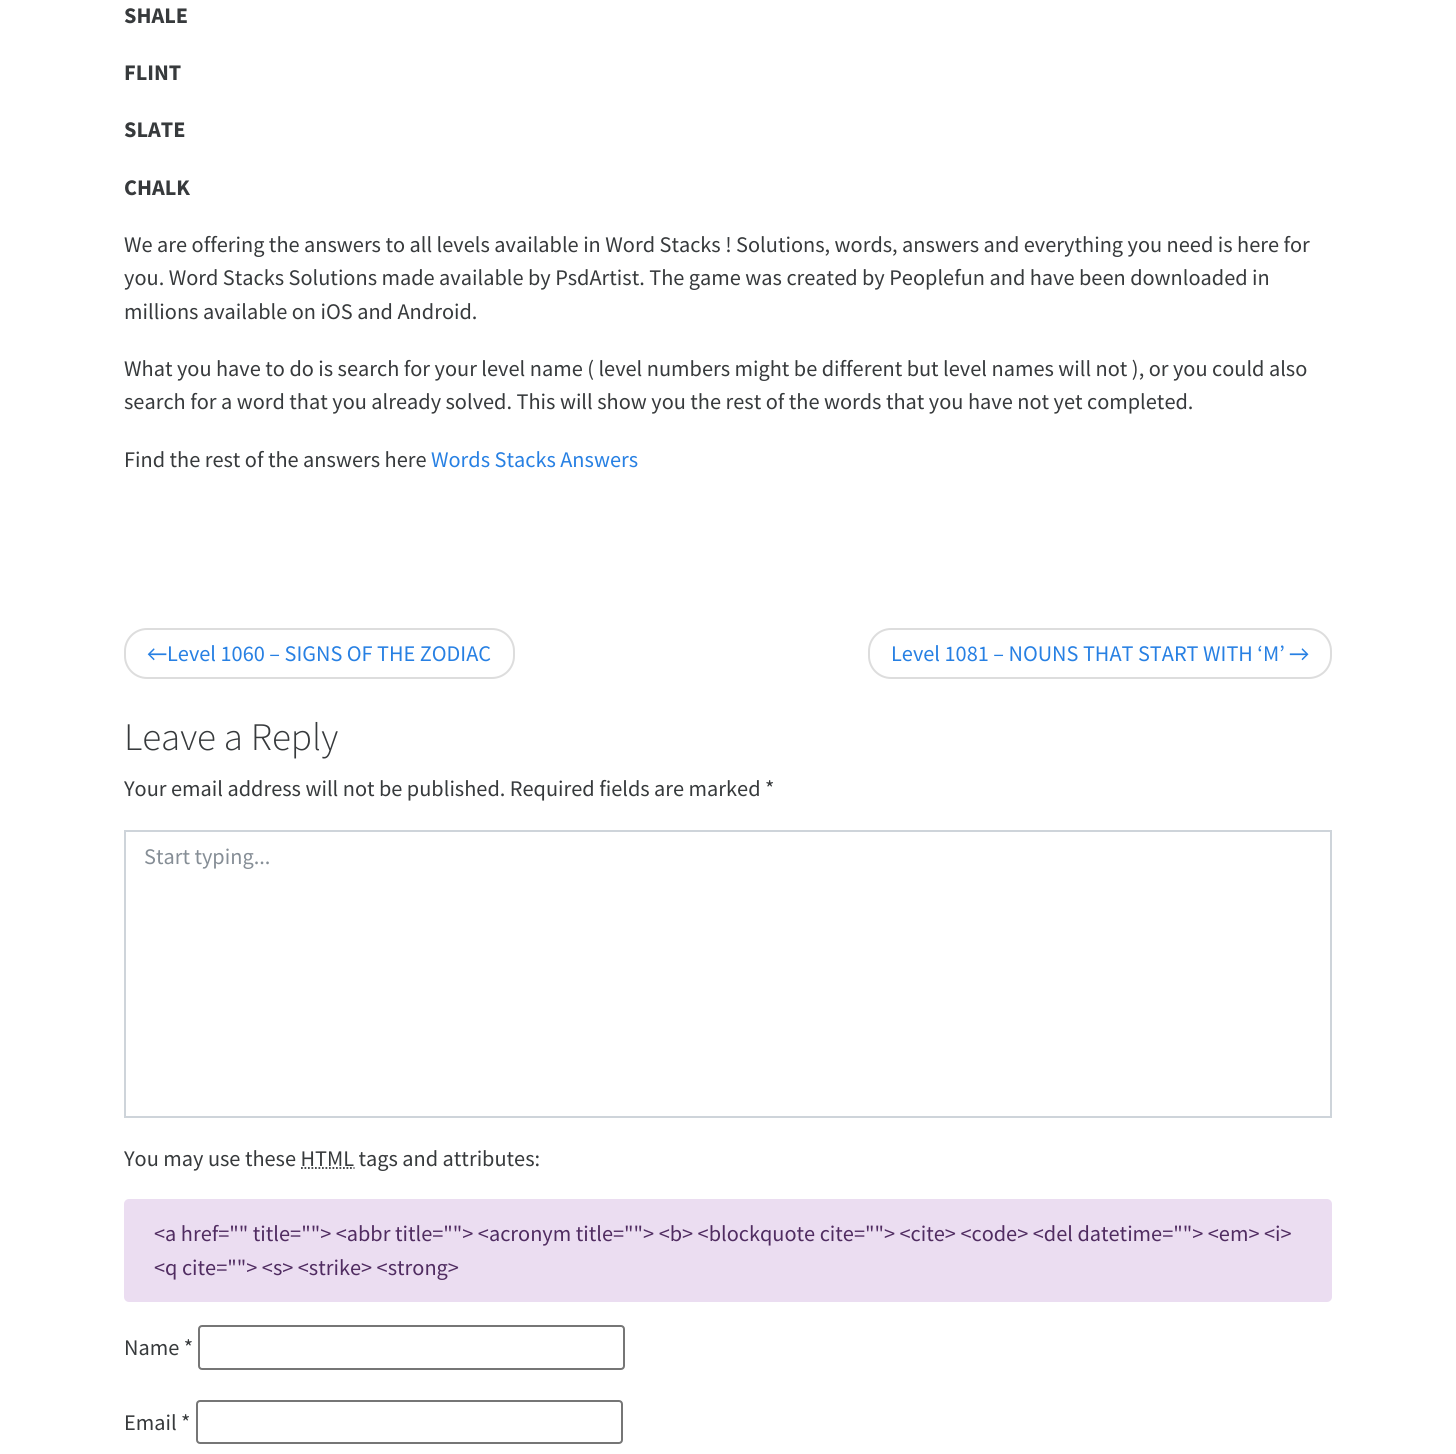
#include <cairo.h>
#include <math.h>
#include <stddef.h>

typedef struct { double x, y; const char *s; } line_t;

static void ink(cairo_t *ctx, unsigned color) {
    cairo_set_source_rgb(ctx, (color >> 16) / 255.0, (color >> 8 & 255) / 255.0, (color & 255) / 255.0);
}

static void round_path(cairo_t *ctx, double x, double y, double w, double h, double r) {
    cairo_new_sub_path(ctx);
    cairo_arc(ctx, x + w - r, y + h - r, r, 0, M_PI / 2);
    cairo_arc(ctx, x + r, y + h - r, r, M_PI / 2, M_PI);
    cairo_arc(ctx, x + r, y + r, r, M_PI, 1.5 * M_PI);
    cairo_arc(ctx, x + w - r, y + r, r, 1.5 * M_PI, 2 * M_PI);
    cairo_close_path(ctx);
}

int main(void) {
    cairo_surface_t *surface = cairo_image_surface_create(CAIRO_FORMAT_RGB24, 1456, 1454);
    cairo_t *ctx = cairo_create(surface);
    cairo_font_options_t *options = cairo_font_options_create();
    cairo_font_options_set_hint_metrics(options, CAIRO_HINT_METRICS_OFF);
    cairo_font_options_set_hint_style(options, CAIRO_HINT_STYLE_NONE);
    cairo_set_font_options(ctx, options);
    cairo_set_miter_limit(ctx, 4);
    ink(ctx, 0xFFFFFF);
    cairo_paint(ctx);
    cairo_select_font_face(ctx, "Source Sans Pro", CAIRO_FONT_SLANT_NORMAL, CAIRO_FONT_WEIGHT_BOLD);
    cairo_set_font_size(ctx, 22.3);
    ink(ctx, 0x373A3C);
    {
        static const line_t items[] = {
            {124, 23, "SHALE"},
            {124, 80, "FLINT"},
            {124, 137, "SLATE"},
            {124, 195, "CHALK"},
        };
        for (size_t i = 0; i < sizeof items / sizeof *items; i++) {
            cairo_move_to(ctx, items[i].x, items[i].y);
            cairo_show_text(ctx, items[i].s);
        }
    }
    cairo_select_font_face(ctx, "Source Sans Pro", CAIRO_FONT_SLANT_NORMAL, CAIRO_FONT_WEIGHT_NORMAL);
    {
        static const line_t items[] = {
            {124, 252, "We are offering the answers to all levels available in Word Stacks ! Solutions, words, answers and everything you need is here for"},
            {124, 285, "you. Word Stacks Solutions made available by PsdArtist. The game was created by Peoplefun and have been downloaded in"},
            {124, 319, "millions available on iOS and Android."},
            {124, 376, "What you have to do is search for your level name ( level numbers might be different but level names will not ), or you could also"},
            {124, 409, "search for a word that you already solved. This will show you the rest of the words that you have not yet completed."},
            {124, 467, "Find the rest of the answers here"},
        };
        for (size_t i = 0; i < sizeof items / sizeof *items; i++) {
            cairo_move_to(ctx, items[i].x, items[i].y);
            cairo_show_text(ctx, items[i].s);
        }
    }
    ink(ctx, 0x2780E3);
    cairo_move_to(ctx, 431, 467);
    cairo_show_text(ctx, "Words Stacks Answers");
    round_path(ctx, 125, 629, 389, 49, 22);
    ink(ctx, 0xDDDDDD);
    cairo_stroke(ctx);
    cairo_select_font_face(ctx, "Carlito", CAIRO_FONT_SLANT_NORMAL, CAIRO_FONT_WEIGHT_NORMAL);
    ink(ctx, 0x2780E3);
    cairo_move_to(ctx, 147, 661);
    cairo_show_text(ctx, "←");
    cairo_select_font_face(ctx, "Source Sans Pro", CAIRO_FONT_SLANT_NORMAL, CAIRO_FONT_WEIGHT_NORMAL);
    cairo_move_to(ctx, 167, 661);
    cairo_show_text(ctx, "Level 1060 – SIGNS OF THE ZODIAC");
    round_path(ctx, 869, 629, 462, 49, 22);
    ink(ctx, 0xDDDDDD);
    cairo_stroke(ctx);
    ink(ctx, 0x2780E3);
    cairo_move_to(ctx, 891, 661);
    cairo_show_text(ctx, "Level 1081 – NOUNS THAT START WITH ‘M’");
    cairo_select_font_face(ctx, "Carlito", CAIRO_FONT_SLANT_NORMAL, CAIRO_FONT_WEIGHT_NORMAL);
    cairo_move_to(ctx, 1289, 661);
    cairo_show_text(ctx, "→");
    cairo_select_font_face(ctx, "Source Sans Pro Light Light", CAIRO_FONT_SLANT_NORMAL, CAIRO_FONT_WEIGHT_NORMAL);
    cairo_set_font_size(ctx, 39);
    ink(ctx, 0x373A3C);
    cairo_move_to(ctx, 124, 750);
    cairo_show_text(ctx, "Leave a Reply");
    cairo_select_font_face(ctx, "Source Sans Pro", CAIRO_FONT_SLANT_NORMAL, CAIRO_FONT_WEIGHT_NORMAL);
    cairo_set_font_size(ctx, 22.3);
    cairo_move_to(ctx, 124, 796);
    cairo_show_text(ctx, "Your email address will not be published. Required fields are marked *");
    cairo_rectangle(ctx, 125, 831, 1206, 286);
    ink(ctx, 0xCED4DA);
    cairo_stroke(ctx);
    ink(ctx, 0x868E96);
    cairo_move_to(ctx, 144, 864);
    cairo_show_text(ctx, "Start typing...");
    ink(ctx, 0x373A3C);
    cairo_move_to(ctx, 124, 1166);
    cairo_show_text(ctx, "You may use these HTML tags and attributes:");
    cairo_new_path(ctx);
    cairo_move_to(ctx, 301, 1168);
    cairo_line_to(ctx, 354.5, 1168);
    cairo_set_line_width(ctx, 1.8);
    cairo_set_dash(ctx, (double[]){1.75, 1.75}, 2, 0);
    cairo_stroke(ctx);
    ink(ctx, 0xEBDDF1);
    round_path(ctx, 124, 1199, 1208, 103, 5);
    cairo_fill(ctx);
    ink(ctx, 0x502C61);
    cairo_move_to(ctx, 154, 1241);
    cairo_show_text(ctx, "<a href=\"\" title=\"\"> <abbr title=\"\"> <acronym title=\"\"> <b> <blockquote cite=\"\"> <cite> <code> <del datetime=\"\"> <em> <i>");
    cairo_move_to(ctx, 154, 1275);
    cairo_show_text(ctx, "<q cite=\"\"> <s> <strike> <strong>");
    ink(ctx, 0x373A3C);
    cairo_move_to(ctx, 124, 1355);
    cairo_show_text(ctx, "Name *");
    round_path(ctx, 199, 1326, 425, 43, 3);
    ink(ctx, 0x767676);
    cairo_set_line_width(ctx, 2);
    cairo_set_dash(ctx, NULL, 0, 0);
    cairo_stroke(ctx);
    ink(ctx, 0x373A3C);
    cairo_move_to(ctx, 124, 1430);
    cairo_show_text(ctx, "Email *");
    round_path(ctx, 197, 1401, 425, 42, 3);
    ink(ctx, 0x767676);
    cairo_stroke(ctx);
    cairo_surface_write_to_png(surface, "image.png");
    cairo_font_options_destroy(options);
    cairo_destroy(ctx);
    cairo_surface_destroy(surface);
    return 0;
}
